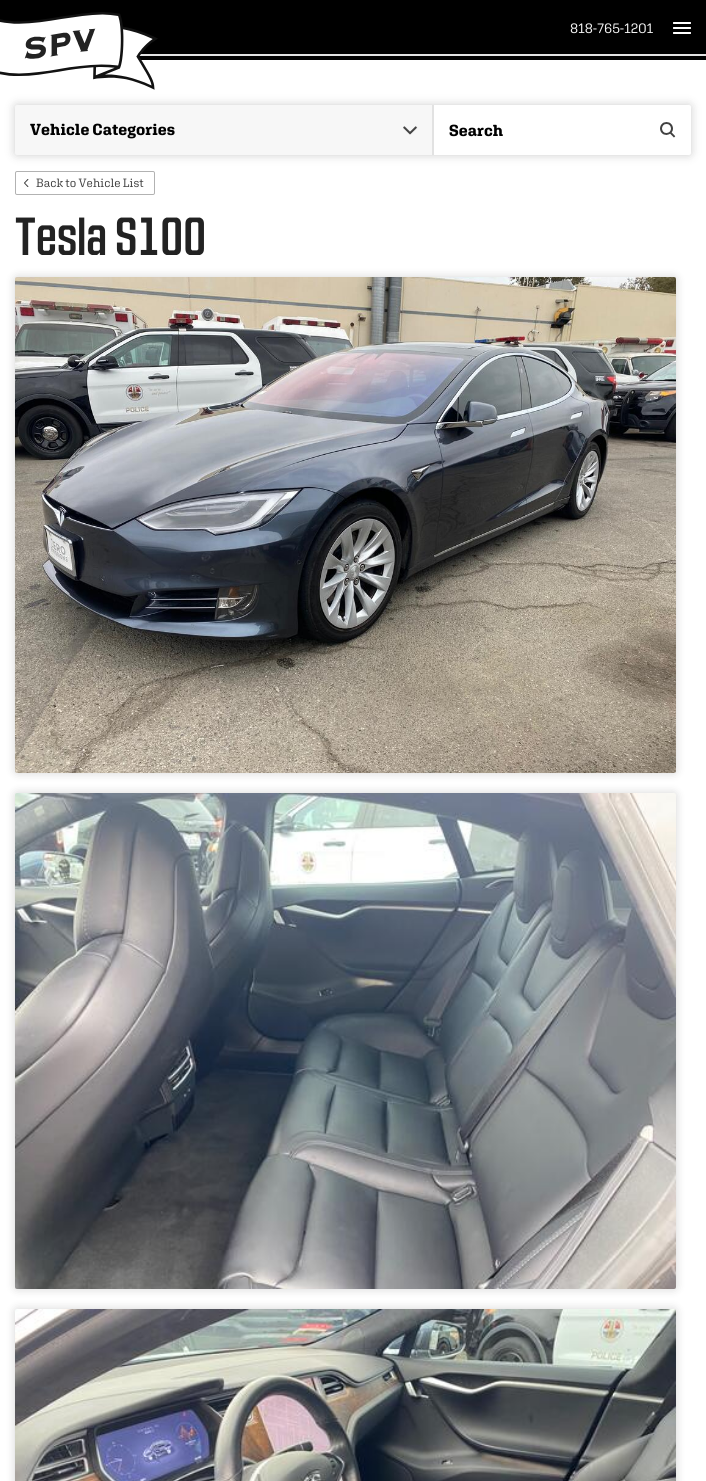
#include <cairo.h>
#include <math.h>
#include <stddef.h>


static void ink(cairo_t *ctx, unsigned color) {
    cairo_set_source_rgb(ctx, (color >> 16) / 255.0, (color >> 8 & 255) / 255.0, (color & 255) / 255.0);
}

static void round_path(cairo_t *ctx, double x, double y, double w, double h, double r) {
    cairo_new_sub_path(ctx);
    cairo_arc(ctx, x + w - r, y + h - r, r, 0, M_PI / 2);
    cairo_arc(ctx, x + r, y + h - r, r, M_PI / 2, M_PI);
    cairo_arc(ctx, x + r, y + r, r, M_PI, 1.5 * M_PI);
    cairo_arc(ctx, x + w - r, y + r, r, 1.5 * M_PI, 2 * M_PI);
    cairo_close_path(ctx);
}

static void blur_box(cairo_t *ctx, double x, double y, double w, double h, double r, double blur, double alpha) {
    cairo_push_group_with_content(ctx, CAIRO_CONTENT_ALPHA);
    cairo_set_operator(ctx, CAIRO_OPERATOR_SOURCE);
    for (int i = 15; i >= -15 && fmin(w, h) + blur * i / 3 > 0; i -= 2) {
        double e = blur * i / 6;
        cairo_set_source_rgba(ctx, 0, 0, 0, alpha * erfc((i - 1) / 8.5) / 2);
        round_path(ctx, x - e, y - e, w + 2 * e, h + 2 * e, fmax(0, fmin(r + e + blur * .6, fmin(w, h) / 2 + e)));
        cairo_fill(ctx);
    }
    cairo_pattern_t *soft = cairo_pop_group(ctx);
    cairo_mask(ctx, soft);
    cairo_pattern_destroy(soft);
}

static void paste(cairo_t *ctx, const char *path, double x, double y, double w, double h) {
    cairo_surface_t *image = cairo_image_surface_create_from_png(path);
    cairo_save(ctx);
    cairo_set_source_surface(ctx, image, x, y);
    cairo_rectangle(ctx, x, y, w, h);
    cairo_fill(ctx);
    cairo_restore(ctx);
    cairo_surface_destroy(image);
}

int main(void) {
    cairo_surface_t *surface = cairo_image_surface_create(CAIRO_FORMAT_RGB24, 706, 1481);
    cairo_t *ctx = cairo_create(surface);
    cairo_font_options_t *options = cairo_font_options_create();
    cairo_font_options_set_hint_metrics(options, CAIRO_HINT_METRICS_OFF);
    cairo_font_options_set_hint_style(options, CAIRO_HINT_STYLE_NONE);
    cairo_set_font_options(ctx, options);
    cairo_set_miter_limit(ctx, 4);
    ink(ctx, 0xFFFFFF);
    cairo_paint(ctx);
    ink(ctx, 0x000000);
    cairo_rectangle(ctx, 0, 0, 706, 60);
    cairo_fill(ctx);
    ink(ctx, 0x000000);
    blur_box(ctx, 15, 105, 676, 50, 2, 5, 0.2);
    ink(ctx, 0xE2E2E2);
    cairo_rectangle(ctx, 139, 54, 567, 2);
    cairo_fill(ctx);
    paste(ctx, "media/1.png", 0, 12, 158, 78);
    cairo_select_font_face(ctx, "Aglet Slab", CAIRO_FONT_SLANT_NORMAL, CAIRO_FONT_WEIGHT_NORMAL);
    cairo_set_font_size(ctx, 14);
    ink(ctx, 0xF2F2F2);
    cairo_move_to(ctx, 570, 33);
    cairo_show_text(ctx, "818-765-1201");
    ink(ctx, 0xF7F7F7);
    cairo_new_path(ctx);
    cairo_move_to(ctx, 17, 105);
    cairo_line_to(ctx, 434, 105);
    cairo_line_to(ctx, 434, 155);
    cairo_line_to(ctx, 17, 155);
    cairo_curve_to(ctx, 16, 155, 15, 154, 15, 153);
    cairo_line_to(ctx, 15, 107);
    cairo_curve_to(ctx, 15, 106, 16, 105, 17, 105);
    cairo_close_path(ctx);
    cairo_fill(ctx);
    paste(ctx, "media/2.png", 403, 126, 15, 9);
    ink(ctx, 0xE2E2E2);
    cairo_rectangle(ctx, 432, 105, 2, 50);
    cairo_fill(ctx);
    cairo_select_font_face(ctx, "Aglet Slab", CAIRO_FONT_SLANT_NORMAL, CAIRO_FONT_WEIGHT_BOLD);
    cairo_set_font_size(ctx, 16);
    ink(ctx, 0x000000);
    cairo_move_to(ctx, 30, 135);
    cairo_show_text(ctx, "Vehicle Categories");
    ink(ctx, 0xFFFFFF);
    cairo_new_path(ctx);
    cairo_move_to(ctx, 434, 105);
    cairo_line_to(ctx, 689, 105);
    cairo_curve_to(ctx, 690, 105, 691, 106, 691, 107);
    cairo_line_to(ctx, 691, 153);
    cairo_curve_to(ctx, 691, 154, 690, 155, 689, 155);
    cairo_line_to(ctx, 434, 155);
    cairo_close_path(ctx);
    cairo_fill(ctx);
    ink(ctx, 0x000000);
    cairo_move_to(ctx, 449, 136);
    cairo_show_text(ctx, "Search");
    paste(ctx, "media/3.png", 660, 122, 16, 16);
    paste(ctx, "media/4.png", 673, 22, 18, 12);
    round_path(ctx, 15.5, 171.5, 139, 23, 1.5);
    ink(ctx, 0xB2B2B2);
    cairo_set_line_width(ctx, 1);
    cairo_stroke(ctx);
    paste(ctx, "media/5.png", 24, 179, 5, 8);
    cairo_select_font_face(ctx, "Aglet Slab", CAIRO_FONT_SLANT_NORMAL, CAIRO_FONT_WEIGHT_NORMAL);
    cairo_set_font_size(ctx, 12);
    ink(ctx, 0x424242);
    cairo_move_to(ctx, 36, 187);
    cairo_show_text(ctx, "Back to Vehicle List");
    cairo_select_font_face(ctx, "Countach", CAIRO_FONT_SLANT_NORMAL, CAIRO_FONT_WEIGHT_NORMAL);
    cairo_set_font_size(ctx, 52);
    ink(ctx, 0x222222);
    cairo_move_to(ctx, 15, 255);
    cairo_show_text(ctx, "Tesla S100");
    ink(ctx, 0x000000);
    blur_box(ctx, 15, 277, 661, 496, 2, 5, 0.16);
    paste(ctx, "media/6.png", 15, 277, 661, 496);
    blur_box(ctx, 15, 793, 661, 496, 2, 5, 0.16);
    paste(ctx, "media/7.png", 15, 793, 661, 496);
    blur_box(ctx, 15, 1309, 661, 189, 2, 5, 0.16);
    paste(ctx, "media/8.png", 15, 1309, 661, 172);
    cairo_surface_write_to_png(surface, "image.png");
    cairo_font_options_destroy(options);
    cairo_destroy(ctx);
    cairo_surface_destroy(surface);
    return 0;
}
